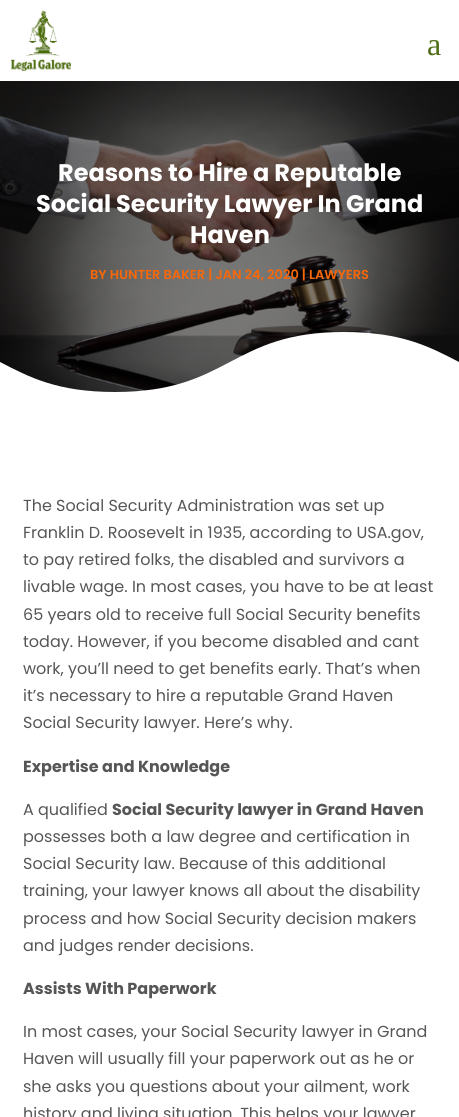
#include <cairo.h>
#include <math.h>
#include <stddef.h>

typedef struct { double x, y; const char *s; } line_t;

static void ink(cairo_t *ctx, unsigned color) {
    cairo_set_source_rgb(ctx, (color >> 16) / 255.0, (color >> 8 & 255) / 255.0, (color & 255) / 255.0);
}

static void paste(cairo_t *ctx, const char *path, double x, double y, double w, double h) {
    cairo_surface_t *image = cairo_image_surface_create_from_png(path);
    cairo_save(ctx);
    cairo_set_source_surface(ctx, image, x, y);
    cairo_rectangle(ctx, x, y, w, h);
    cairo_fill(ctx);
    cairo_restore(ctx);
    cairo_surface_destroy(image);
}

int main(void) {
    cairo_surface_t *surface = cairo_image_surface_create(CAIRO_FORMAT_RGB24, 459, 1117);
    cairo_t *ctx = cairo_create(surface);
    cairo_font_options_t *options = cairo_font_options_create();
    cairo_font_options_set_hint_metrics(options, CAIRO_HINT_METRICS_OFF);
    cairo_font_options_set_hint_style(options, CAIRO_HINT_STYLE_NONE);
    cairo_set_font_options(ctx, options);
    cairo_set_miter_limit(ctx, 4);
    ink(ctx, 0xFFFFFF);
    cairo_paint(ctx);
    paste(ctx, "media/1.png", 11, 10, 60, 61);
    cairo_select_font_face(ctx, "Liberation Serif", CAIRO_FONT_SLANT_NORMAL, CAIRO_FONT_WEIGHT_NORMAL);
    cairo_set_font_size(ctx, 32);
    ink(ctx, 0x506E1A);
    cairo_move_to(ctx, 427, 55);
    cairo_show_text(ctx, "a");
    paste(ctx, "media/2.png", 0, 81, 459, 311);
    cairo_select_font_face(ctx, "Poppins", CAIRO_FONT_SLANT_NORMAL, CAIRO_FONT_WEIGHT_BOLD);
    cairo_set_font_size(ctx, 24);
    ink(ctx, 0xFFFFFF);
    {
        static const line_t items[] = {
            {58, 181, "Reasons to Hire a Reputable"},
            {36, 212, "Social Security Lawyer In Grand"},
            {190, 243, "Haven"},
        };
        for (size_t i = 0; i < sizeof items / sizeof *items; i++) {
            cairo_move_to(ctx, items[i].x, items[i].y);
            cairo_show_text(ctx, items[i].s);
        }
    }
    cairo_select_font_face(ctx, "Poppins SemiBold", CAIRO_FONT_SLANT_NORMAL, CAIRO_FONT_WEIGHT_NORMAL);
    cairo_set_font_size(ctx, 13);
    ink(ctx, 0xF86708);
    cairo_move_to(ctx, 90, 279);
    cairo_show_text(ctx, "BY HUNTER BAKER | JAN 24, 2020 | LAWYERS");
    ink(ctx, 0xFFFFFF);
    cairo_new_path(ctx);
    cairo_move_to(ctx, 344, 332);
    cairo_curve_to(ctx, 230, 332, 230, 392, 115, 392);
    cairo_curve_to(ctx, 57, 392, 29, 377, 0, 362);
    cairo_line_to(ctx, 0, 412);
    cairo_line_to(ctx, 459, 412);
    cairo_line_to(ctx, 459, 362);
    cairo_curve_to(ctx, 430, 347, 402, 332, 344, 332);
    cairo_close_path(ctx);
    cairo_fill(ctx);
    cairo_select_font_face(ctx, "Poppins", CAIRO_FONT_SLANT_NORMAL, CAIRO_FONT_WEIGHT_NORMAL);
    cairo_set_font_size(ctx, 16);
    ink(ctx, 0x565656);
    {
        static const line_t items[] = {
            {23, 511, "The Social Security Administration was set up"},
            {23, 538, "Franklin D. Roosevelt in 1935, according to USA.gov,"},
            {23, 565, "to pay retired folks, the disabled and survivors a"},
            {23, 592, "livable wage. In most cases, you have to be at least"},
            {23, 620, "65 years old to receive full Social Security benefits"},
            {23, 647, "today. However, if you become disabled and cant"},
            {23, 674, "work, you’ll need to get benefits early. That’s when"},
            {23, 701, "it’s necessary to hire a reputable Grand Haven"},
            {23, 728, "Social Security lawyer. Here’s why."},
        };
        for (size_t i = 0; i < sizeof items / sizeof *items; i++) {
            cairo_move_to(ctx, items[i].x, items[i].y);
            cairo_show_text(ctx, items[i].s);
        }
    }
    cairo_select_font_face(ctx, "Poppins", CAIRO_FONT_SLANT_NORMAL, CAIRO_FONT_WEIGHT_BOLD);
    cairo_move_to(ctx, 23, 772);
    cairo_show_text(ctx, "Expertise and Knowledge");
    cairo_select_font_face(ctx, "Poppins", CAIRO_FONT_SLANT_NORMAL, CAIRO_FONT_WEIGHT_NORMAL);
    cairo_move_to(ctx, 23, 815);
    cairo_show_text(ctx, "A qualified");
    cairo_select_font_face(ctx, "Poppins", CAIRO_FONT_SLANT_NORMAL, CAIRO_FONT_WEIGHT_BOLD);
    cairo_move_to(ctx, 112, 815);
    cairo_show_text(ctx, "Social Security lawyer in Grand Haven");
    cairo_select_font_face(ctx, "Poppins", CAIRO_FONT_SLANT_NORMAL, CAIRO_FONT_WEIGHT_NORMAL);
    {
        static const line_t items[] = {
            {23, 842, "possesses both a law degree and certification in"},
            {23, 869, "Social Security law. Because of this additional"},
            {23, 896, "training, your lawyer knows all about the disability"},
            {23, 924, "process and how Social Security decision makers"},
            {23, 951, "and judges render decisions."},
        };
        for (size_t i = 0; i < sizeof items / sizeof *items; i++) {
            cairo_move_to(ctx, items[i].x, items[i].y);
            cairo_show_text(ctx, items[i].s);
        }
    }
    cairo_select_font_face(ctx, "Poppins", CAIRO_FONT_SLANT_NORMAL, CAIRO_FONT_WEIGHT_BOLD);
    cairo_move_to(ctx, 23, 994);
    cairo_show_text(ctx, "Assists With Paperwork");
    cairo_select_font_face(ctx, "Poppins", CAIRO_FONT_SLANT_NORMAL, CAIRO_FONT_WEIGHT_NORMAL);
    {
        static const line_t items[] = {
            {23, 1037, "In most cases, your Social Security lawyer in Grand"},
            {23, 1064, "Haven will usually fill your paperwork out as he or"},
            {23, 1092, "she asks you questions about your ailment, work"},
            {23, 1119, "history and living situation. This helps your lawyer"},
        };
        for (size_t i = 0; i < sizeof items / sizeof *items; i++) {
            cairo_move_to(ctx, items[i].x, items[i].y);
            cairo_show_text(ctx, items[i].s);
        }
    }
    cairo_surface_write_to_png(surface, "image.png");
    cairo_font_options_destroy(options);
    cairo_destroy(ctx);
    cairo_surface_destroy(surface);
    return 0;
}
